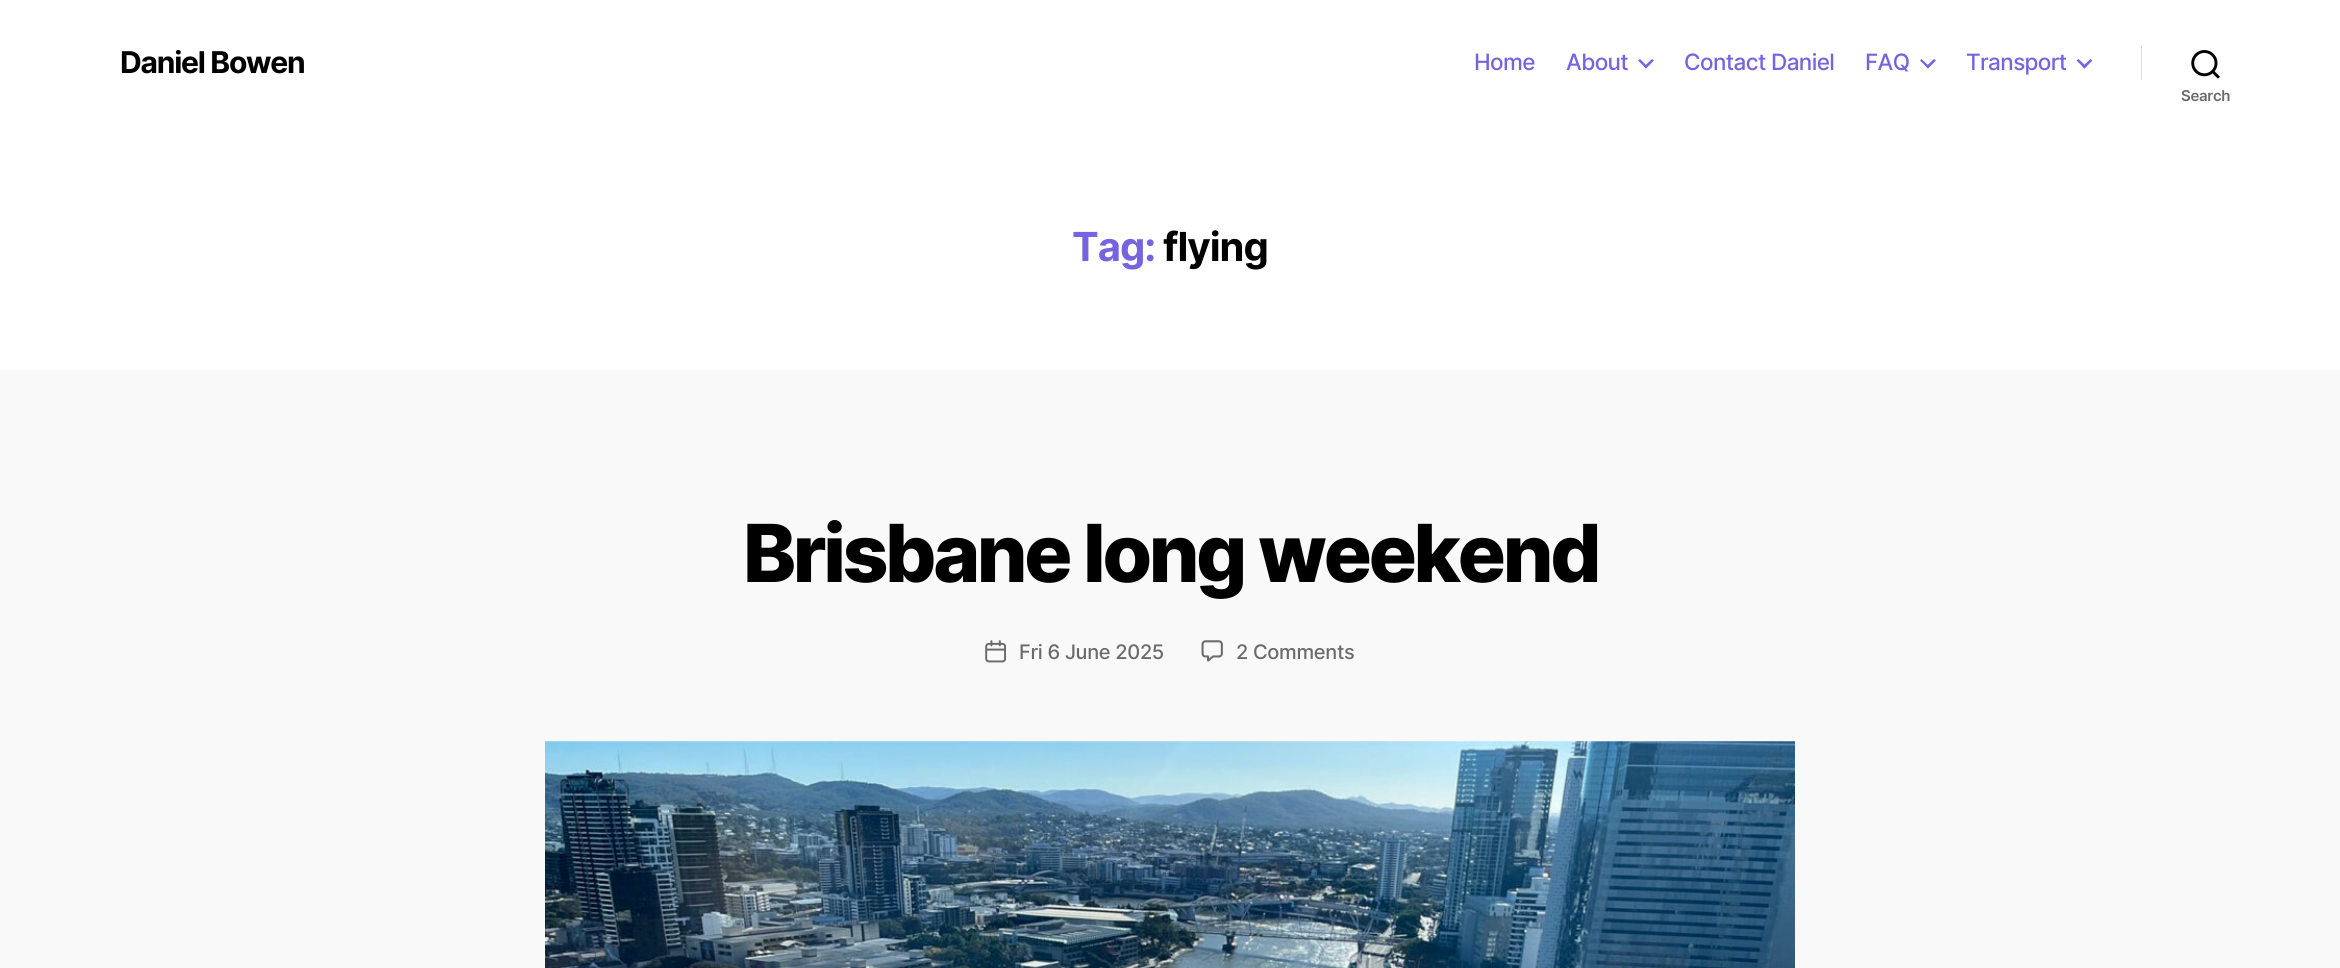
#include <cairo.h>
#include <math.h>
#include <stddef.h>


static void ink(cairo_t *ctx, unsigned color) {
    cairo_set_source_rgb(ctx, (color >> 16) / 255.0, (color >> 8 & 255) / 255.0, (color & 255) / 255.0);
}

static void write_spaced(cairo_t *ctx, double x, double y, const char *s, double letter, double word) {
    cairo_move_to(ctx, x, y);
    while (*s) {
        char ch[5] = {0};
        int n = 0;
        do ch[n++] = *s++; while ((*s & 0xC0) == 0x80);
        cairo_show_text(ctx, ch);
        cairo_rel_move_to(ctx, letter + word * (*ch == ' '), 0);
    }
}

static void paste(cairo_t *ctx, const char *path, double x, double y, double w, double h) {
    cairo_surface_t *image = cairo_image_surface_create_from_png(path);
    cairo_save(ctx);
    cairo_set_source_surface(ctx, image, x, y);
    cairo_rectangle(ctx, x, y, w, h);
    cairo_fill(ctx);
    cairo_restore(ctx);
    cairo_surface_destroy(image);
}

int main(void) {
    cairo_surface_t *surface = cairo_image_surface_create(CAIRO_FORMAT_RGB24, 2340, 968);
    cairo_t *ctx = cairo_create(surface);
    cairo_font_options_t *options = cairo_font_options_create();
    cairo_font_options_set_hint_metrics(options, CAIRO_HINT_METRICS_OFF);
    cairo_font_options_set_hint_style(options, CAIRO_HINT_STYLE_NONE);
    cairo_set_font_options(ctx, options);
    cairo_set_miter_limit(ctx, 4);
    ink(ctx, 0xF9F9F9);
    cairo_paint(ctx);
    ink(ctx, 0xFFFFFF);
    cairo_rectangle(ctx, 0, 0, 2340, 370);
    cairo_fill(ctx);
    cairo_select_font_face(ctx, "Inter", CAIRO_FONT_SLANT_NORMAL, CAIRO_FONT_WEIGHT_BOLD);
    cairo_set_font_size(ctx, 30);
    ink(ctx, 0x000000);
    write_spaced(ctx, 120, 73, "Daniel Bowen", -1.25, 0);
    cairo_select_font_face(ctx, "Inter Medium", CAIRO_FONT_SLANT_NORMAL, CAIRO_FONT_WEIGHT_NORMAL);
    cairo_set_font_size(ctx, 22.5);
    ink(ctx, 0x7663E2);
    write_spaced(ctx, 1474, 70, "Home", -0.6, 0);
    write_spaced(ctx, 1566, 70, "About", -0.6, 0);
    cairo_new_path(ctx);
    cairo_move_to(ctx, 1638, 60.5);
    cairo_line_to(ctx, 1640, 59);
    cairo_line_to(ctx, 1647.5, 66.5);
    cairo_line_to(ctx, 1646, 68.5);
    cairo_close_path(ctx);
    cairo_fill(ctx);
    cairo_new_path(ctx);
    cairo_move_to(ctx, 1644, 66.5);
    cairo_line_to(ctx, 1652, 59);
    cairo_line_to(ctx, 1654, 60.5);
    cairo_line_to(ctx, 1646, 68.5);
    cairo_close_path(ctx);
    cairo_fill(ctx);
    write_spaced(ctx, 1684, 70, "Contact Daniel", -0.6, 0);
    write_spaced(ctx, 1865, 70, "FAQ", -0.6, 0);
    cairo_new_path(ctx);
    cairo_move_to(ctx, 1920, 60.5);
    cairo_line_to(ctx, 1921.5, 59);
    cairo_line_to(ctx, 1929.5, 66.5);
    cairo_line_to(ctx, 1928, 68.5);
    cairo_close_path(ctx);
    cairo_fill(ctx);
    cairo_new_path(ctx);
    cairo_move_to(ctx, 1926, 66.5);
    cairo_line_to(ctx, 1934, 59);
    cairo_line_to(ctx, 1936, 60.5);
    cairo_line_to(ctx, 1928, 68.5);
    cairo_close_path(ctx);
    cairo_fill(ctx);
    write_spaced(ctx, 1966, 70, "Transport", -0.6, 0);
    cairo_new_path(ctx);
    cairo_move_to(ctx, 2076.5, 60.5);
    cairo_line_to(ctx, 2078.5, 59);
    cairo_line_to(ctx, 2086.5, 66.5);
    cairo_line_to(ctx, 2084.5, 68.5);
    cairo_close_path(ctx);
    cairo_fill(ctx);
    cairo_new_path(ctx);
    cairo_move_to(ctx, 2082.5, 66.5);
    cairo_line_to(ctx, 2090.5, 59);
    cairo_line_to(ctx, 2092.5, 60.5);
    cairo_line_to(ctx, 2084.5, 68.5);
    cairo_close_path(ctx);
    cairo_fill(ctx);
    ink(ctx, 0xDBDBDB);
    cairo_rectangle(ctx, 2141, 46, 1, 34);
    cairo_fill(ctx);
    paste(ctx, "media/1.png", 2191, 50, 29, 29);
    cairo_select_font_face(ctx, "Inter SemiBold", CAIRO_FONT_SLANT_NORMAL, CAIRO_FONT_WEIGHT_NORMAL);
    cairo_set_font_size(ctx, 15);
    ink(ctx, 0x6B6B6B);
    write_spaced(ctx, 2181, 101, "Search", -0.3, 0);
    cairo_select_font_face(ctx, "Inter", CAIRO_FONT_SLANT_NORMAL, CAIRO_FONT_WEIGHT_BOLD);
    cairo_set_font_size(ctx, 40);
    ink(ctx, 0x7663E2);
    write_spaced(ctx, 1072, 261, "Tag:", -1, 0);
    ink(ctx, 0x000000);
    write_spaced(ctx, 1163, 261, "flying", -1, 0);
    cairo_select_font_face(ctx, "Inter ExtraBold", CAIRO_FONT_SLANT_NORMAL, CAIRO_FONT_WEIGHT_NORMAL);
    cairo_set_font_size(ctx, 80);
    write_spaced(ctx, 743, 582, "Brisbane long weekend", -3.3, 0);
    paste(ctx, "media/2.png", 985, 640, 21, 23);
    cairo_select_font_face(ctx, "Inter Medium", CAIRO_FONT_SLANT_NORMAL, CAIRO_FONT_WEIGHT_NORMAL);
    cairo_set_font_size(ctx, 20);
    ink(ctx, 0x6B6B6B);
    write_spaced(ctx, 1019, 659, "Fri 6 June 2025", -0.3, 0);
    paste(ctx, "media/3.png", 1201, 640, 22, 22);
    write_spaced(ctx, 1236, 659, "2 Comments", -0.3, 0);
    paste(ctx, "media/4.png", 545, 741, 1250, 227);
    cairo_surface_write_to_png(surface, "image.png");
    cairo_font_options_destroy(options);
    cairo_destroy(ctx);
    cairo_surface_destroy(surface);
    return 0;
}
